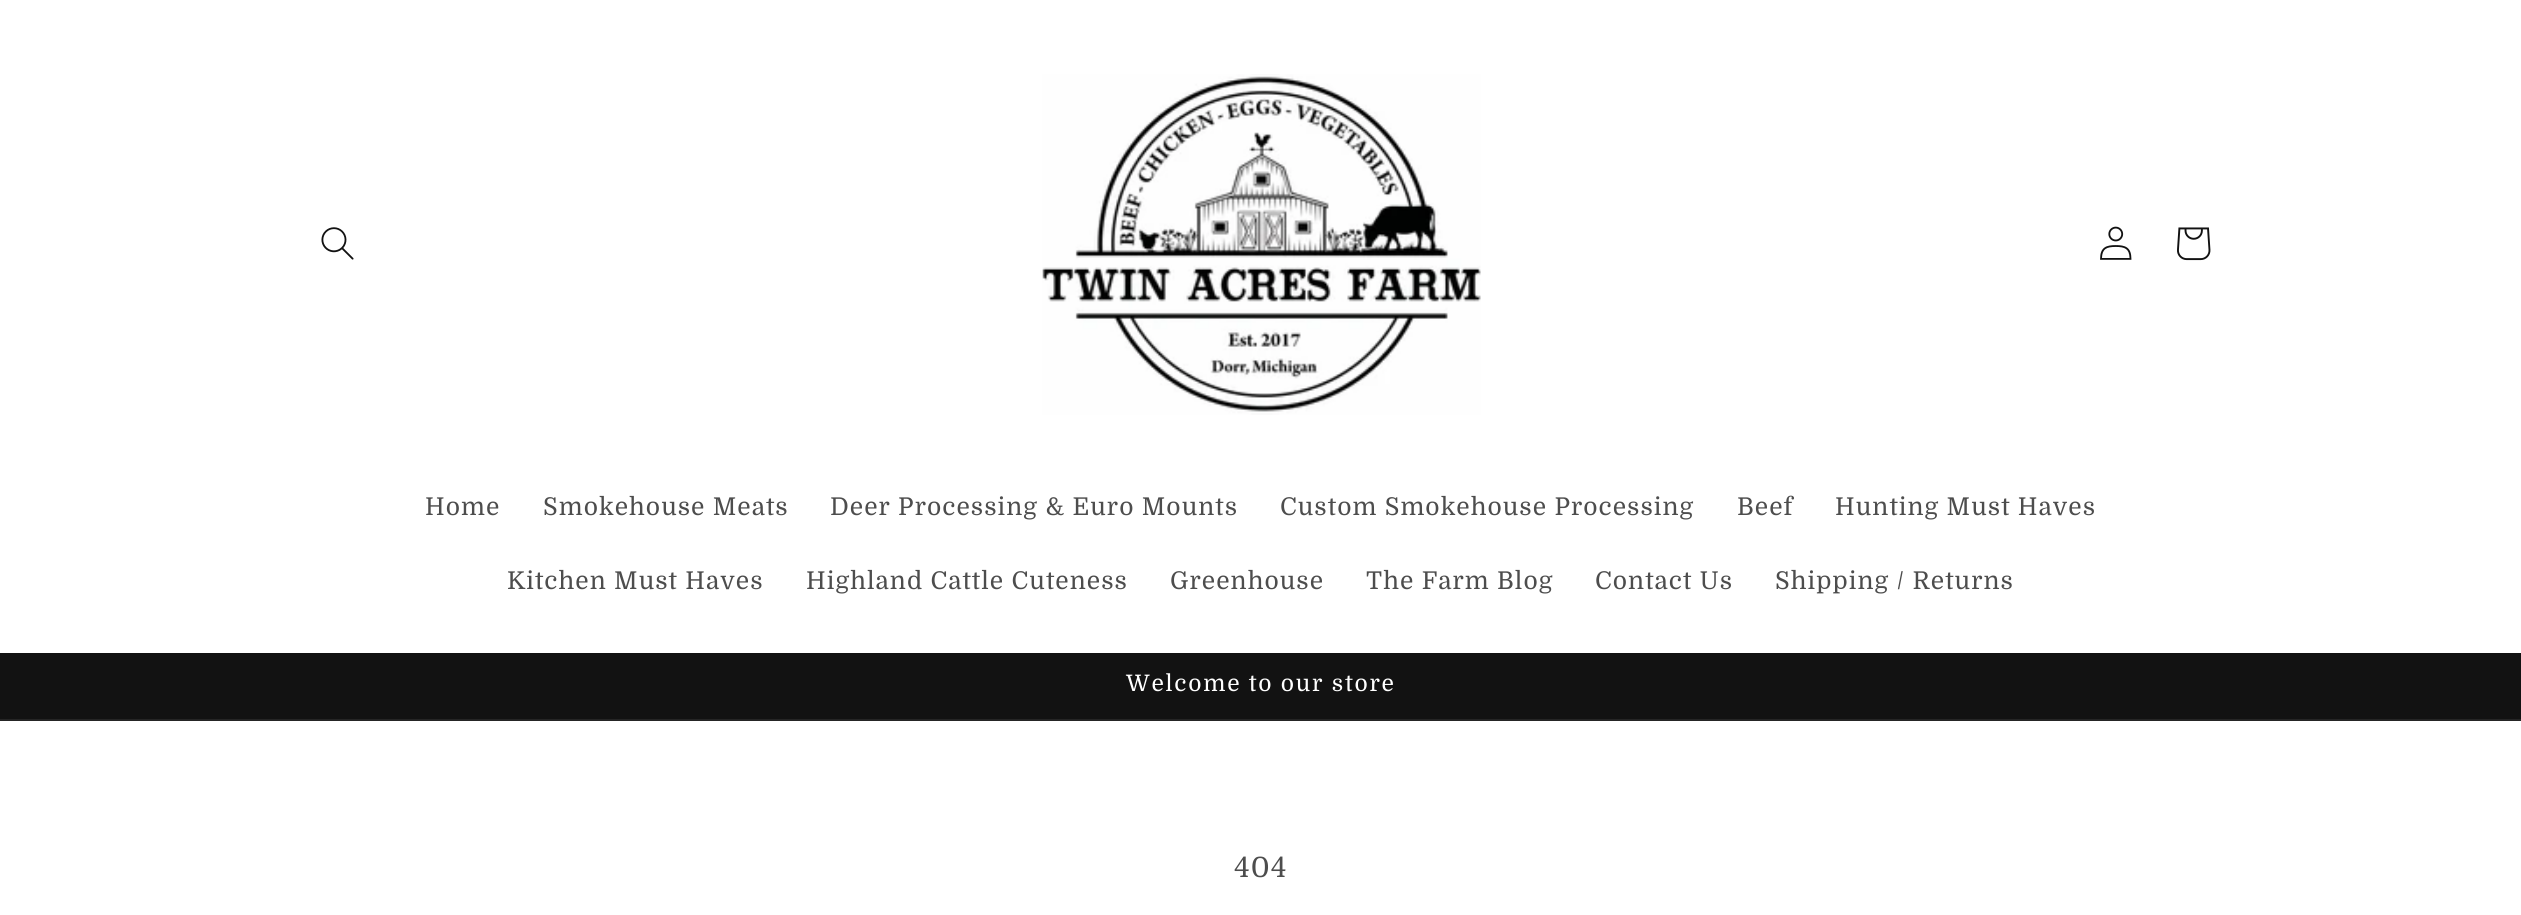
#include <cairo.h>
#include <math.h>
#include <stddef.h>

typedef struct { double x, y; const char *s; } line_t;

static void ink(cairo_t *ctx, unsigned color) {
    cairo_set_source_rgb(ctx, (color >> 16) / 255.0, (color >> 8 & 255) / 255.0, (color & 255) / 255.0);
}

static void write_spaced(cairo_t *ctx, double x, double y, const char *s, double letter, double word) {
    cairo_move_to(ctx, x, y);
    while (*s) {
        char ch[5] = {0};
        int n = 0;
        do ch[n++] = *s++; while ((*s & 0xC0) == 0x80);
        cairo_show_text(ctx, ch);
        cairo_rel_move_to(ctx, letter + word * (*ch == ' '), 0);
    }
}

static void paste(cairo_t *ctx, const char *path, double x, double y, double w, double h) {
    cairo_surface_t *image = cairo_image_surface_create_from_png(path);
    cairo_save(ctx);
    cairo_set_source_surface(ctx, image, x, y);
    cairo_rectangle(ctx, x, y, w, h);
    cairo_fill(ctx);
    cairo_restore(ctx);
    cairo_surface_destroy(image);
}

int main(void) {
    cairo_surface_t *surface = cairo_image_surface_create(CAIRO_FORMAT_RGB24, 2521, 915);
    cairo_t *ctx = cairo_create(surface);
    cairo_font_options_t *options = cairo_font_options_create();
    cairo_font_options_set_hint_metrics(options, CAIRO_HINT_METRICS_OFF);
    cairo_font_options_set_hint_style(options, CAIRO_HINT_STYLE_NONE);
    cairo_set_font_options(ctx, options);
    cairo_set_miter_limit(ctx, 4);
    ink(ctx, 0xFFFFFF);
    cairo_paint(ctx);
    paste(ctx, "media/1.png", 321, 227, 33, 33);
    paste(ctx, "media/2.png", 1042, 74, 439, 341);
    paste(ctx, "media/3.png", 2100, 226, 32, 34);
    paste(ctx, "media/4.png", 2177, 227, 34, 34);
    cairo_select_font_face(ctx, "Domine", CAIRO_FONT_SLANT_NORMAL, CAIRO_FONT_WEIGHT_NORMAL);
    cairo_set_font_size(ctx, 24.5);
    ink(ctx, 0x4D4D4D);
    {
        static const line_t items[] = {
            {425, 515, "Home"},
            {543, 515, "Smokehouse Meats"},
            {830, 515, "Deer Processing & Euro Mounts"},
            {1280, 515, "Custom Smokehouse Processing"},
            {1737, 515, "Beef"},
            {1835, 515, "Hunting Must Haves"},
            {507, 589, "Kitchen Must Haves"},
            {806, 589, "Highland Cattle Cuteness"},
            {1170, 589, "Greenhouse"},
            {1366, 589, "The Farm Blog"},
            {1595, 589, "Contact Us"},
            {1775, 589, "Shipping / Returns"},
        };
        for (size_t i = 0; i < sizeof items / sizeof *items; i++) {
            write_spaced(ctx, items[i].x, items[i].y, items[i].s, 1.05, 0);
        }
    }
    ink(ctx, 0x121212);
    cairo_rectangle(ctx, 0, 653, 2521, 66);
    cairo_fill(ctx);
    ink(ctx, 0x252525);
    cairo_rectangle(ctx, 0, 719, 2521, 2);
    cairo_fill(ctx);
    cairo_set_font_size(ctx, 22.75);
    ink(ctx, 0xFFFFFF);
    write_spaced(ctx, 1126, 691, "Welcome to our store", 1.75, 0);
    cairo_set_font_size(ctx, 28);
    ink(ctx, 0x4D4D4D);
    write_spaced(ctx, 1234, 877, "404", 1.05, 0);
    cairo_surface_write_to_png(surface, "image.png");
    cairo_font_options_destroy(options);
    cairo_destroy(ctx);
    cairo_surface_destroy(surface);
    return 0;
}
